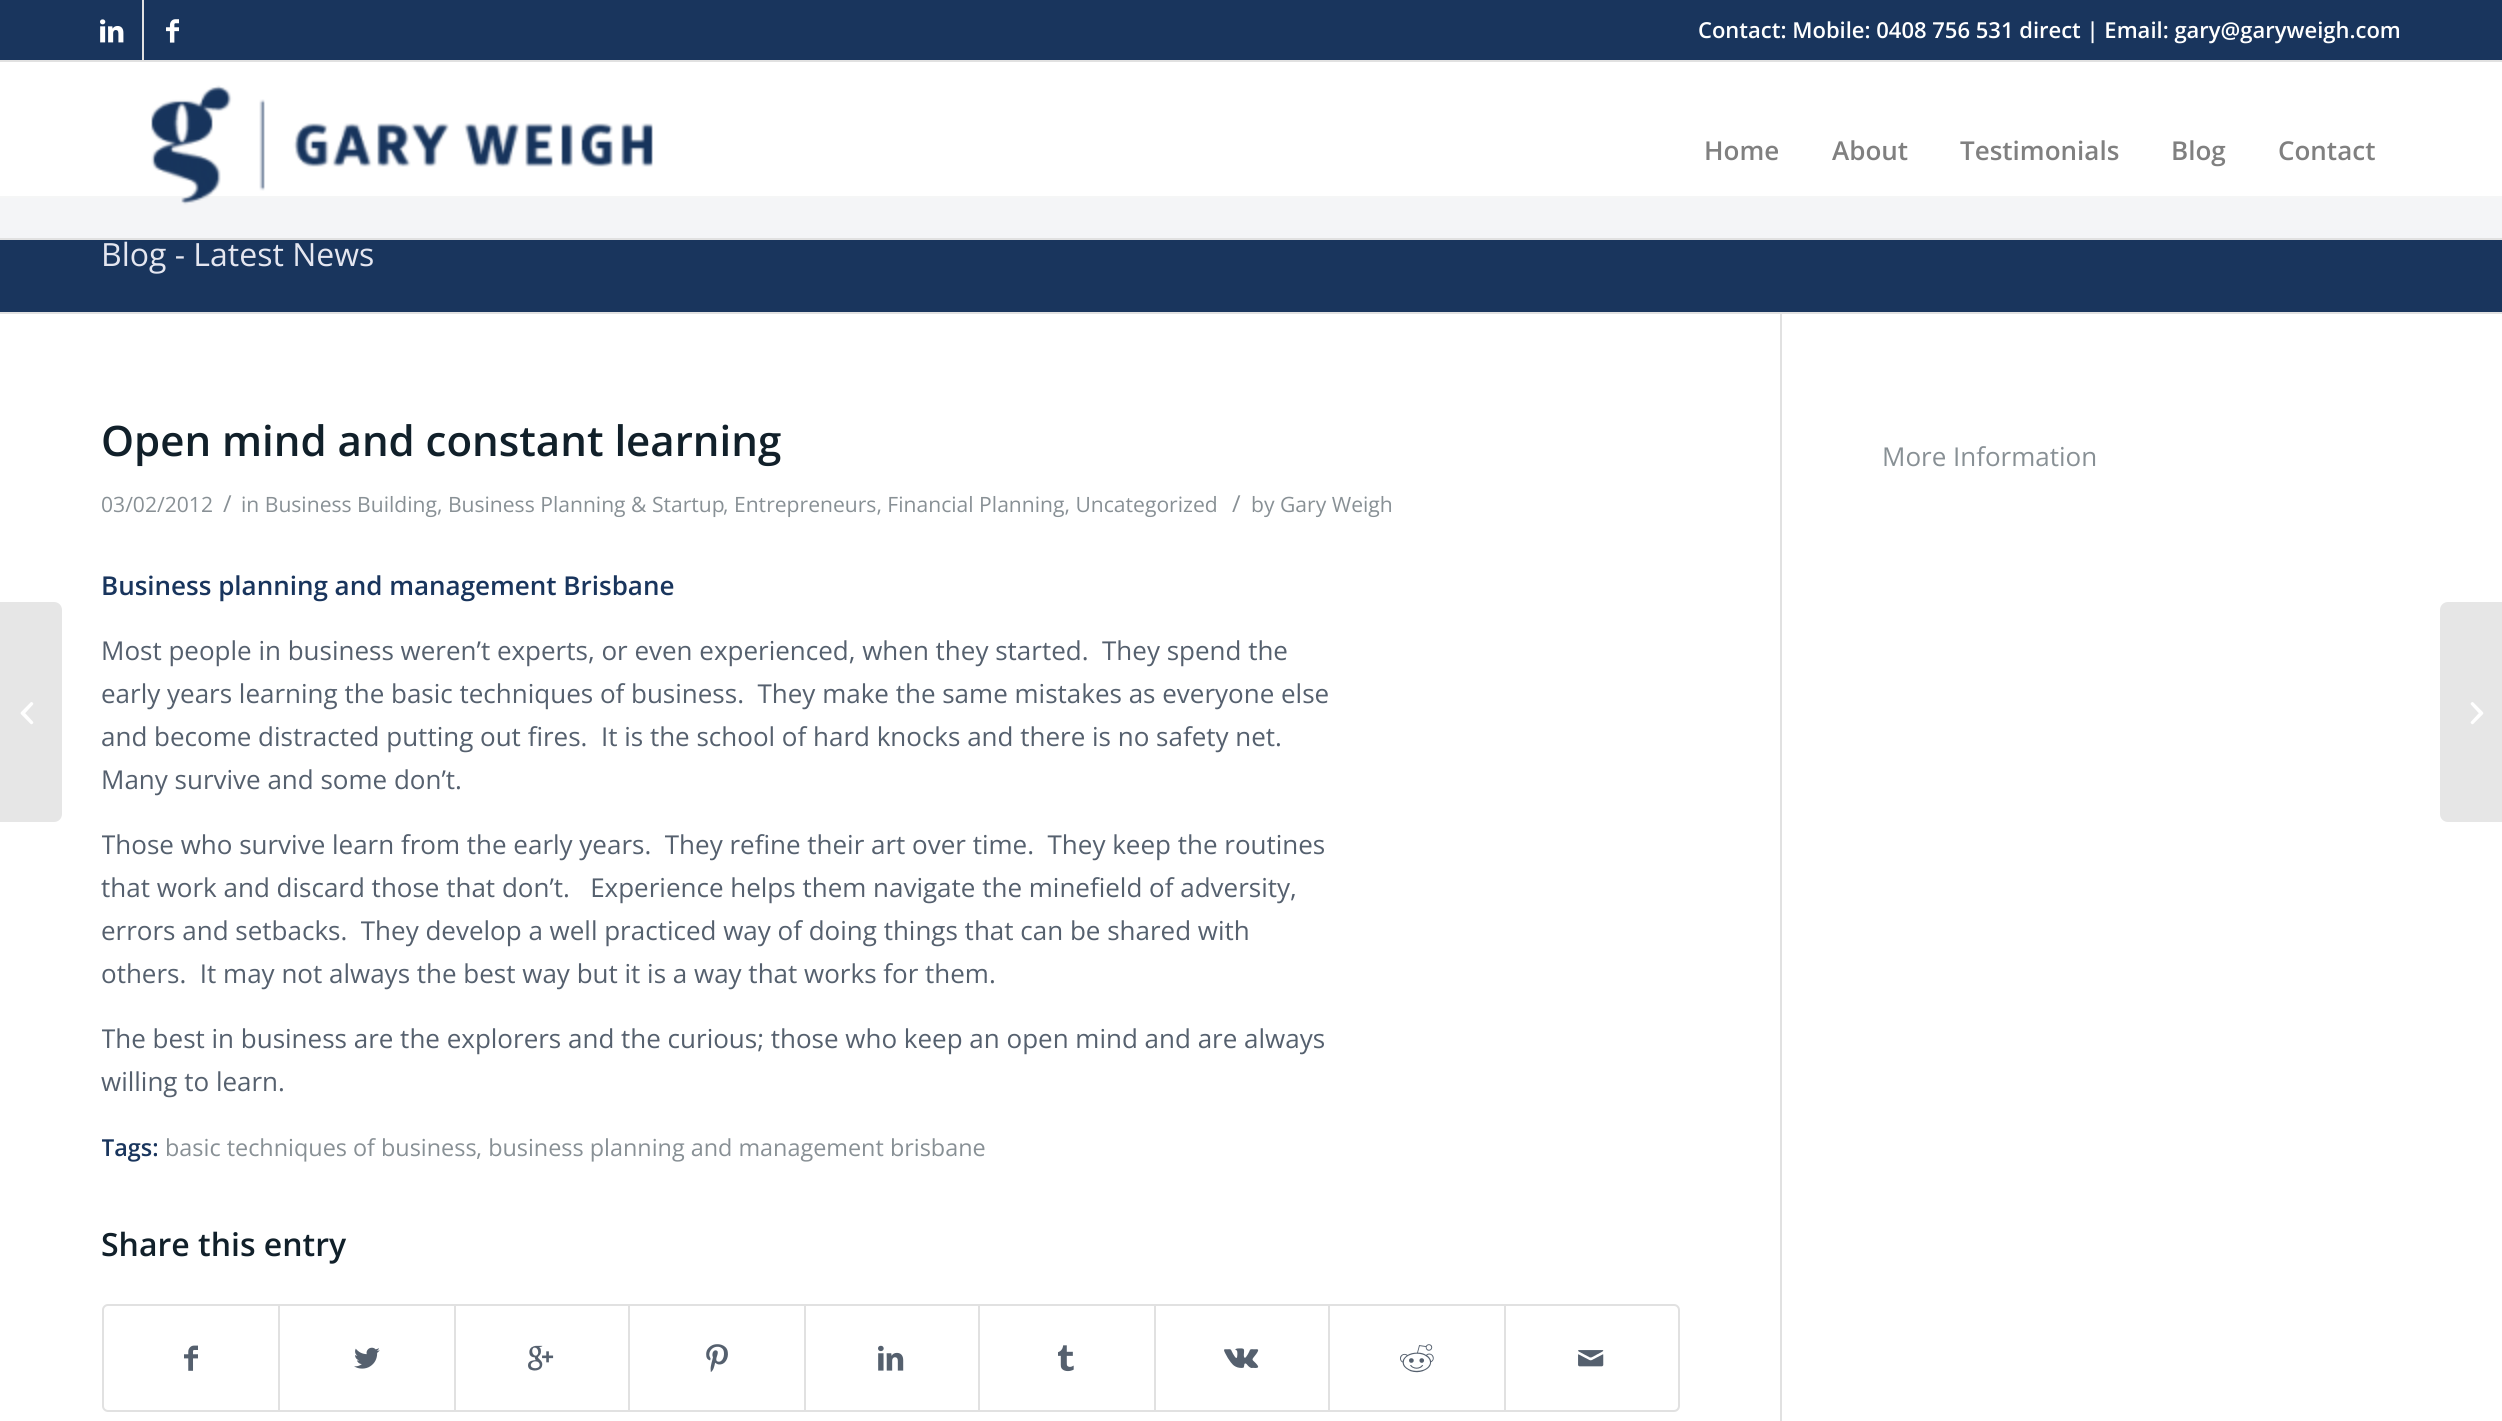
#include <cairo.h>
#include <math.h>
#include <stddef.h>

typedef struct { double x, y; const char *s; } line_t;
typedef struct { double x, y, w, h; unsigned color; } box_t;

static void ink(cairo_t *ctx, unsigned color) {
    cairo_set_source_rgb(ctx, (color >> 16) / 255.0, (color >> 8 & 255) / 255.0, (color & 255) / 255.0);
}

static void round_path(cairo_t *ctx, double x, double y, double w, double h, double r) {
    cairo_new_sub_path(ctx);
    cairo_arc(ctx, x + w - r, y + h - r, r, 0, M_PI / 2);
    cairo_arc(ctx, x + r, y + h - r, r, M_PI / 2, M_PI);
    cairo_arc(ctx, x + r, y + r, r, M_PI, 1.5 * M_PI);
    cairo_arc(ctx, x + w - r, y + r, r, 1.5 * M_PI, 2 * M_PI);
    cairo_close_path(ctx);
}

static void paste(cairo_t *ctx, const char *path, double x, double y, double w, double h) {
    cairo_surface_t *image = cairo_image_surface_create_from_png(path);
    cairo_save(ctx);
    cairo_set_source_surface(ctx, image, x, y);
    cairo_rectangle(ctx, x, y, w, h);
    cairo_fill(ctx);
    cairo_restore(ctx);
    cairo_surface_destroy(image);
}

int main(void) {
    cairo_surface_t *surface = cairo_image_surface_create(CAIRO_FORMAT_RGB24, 2502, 1421);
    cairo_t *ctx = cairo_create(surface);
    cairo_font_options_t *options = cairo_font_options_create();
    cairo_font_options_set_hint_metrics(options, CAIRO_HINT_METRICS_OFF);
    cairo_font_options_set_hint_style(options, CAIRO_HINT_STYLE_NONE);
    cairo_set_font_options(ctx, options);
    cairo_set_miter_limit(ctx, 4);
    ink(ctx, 0xFFFFFF);
    cairo_paint(ctx);
    {
        static const box_t items[] = {
            {0, 0, 2502, 60, 0x19355D},
            {0, 60, 2502, 2, 0xE1E1E1},
            {142, 0, 2, 60, 0xE1E1E1},
        };
        for (size_t i = 0; i < sizeof items / sizeof *items; i++) {
            ink(ctx, items[i].color);
            cairo_rectangle(ctx, items[i].x, items[i].y, items[i].w, items[i].h);
            cairo_fill(ctx);
        }
    }
    paste(ctx, "media/1.png", 100, 19, 24, 24);
    paste(ctx, "media/2.png", 166, 19, 13, 24);
    cairo_select_font_face(ctx, "Open Sans SemiBold", CAIRO_FONT_SLANT_NORMAL, CAIRO_FONT_WEIGHT_NORMAL);
    cairo_set_font_size(ctx, 22);
    ink(ctx, 0xFFFFFF);
    cairo_move_to(ctx, 1698, 38);
    cairo_show_text(ctx, "Contact: Mobile: 0408 756 531 direct | Email: gary@garyweigh.com");
    {
        static const box_t items[] = {
            {0, 238, 2502, 2, 0xE1E1E1},
            {0, 198, 2502, 40, 0xF4F5F7},
            {0, 196, 2502, 2, 0xF5F6F6},
        };
        for (size_t i = 0; i < sizeof items / sizeof *items; i++) {
            ink(ctx, items[i].color);
            cairo_rectangle(ctx, items[i].x, items[i].y, items[i].w, items[i].h);
            cairo_fill(ctx);
        }
    }
    paste(ctx, "media/3.png", 151, 85, 502, 120);
    cairo_set_font_size(ctx, 26);
    ink(ctx, 0x808080);
    {
        static const line_t items[] = {
            {1704, 160, "Home"},
            {1832, 160, "About"},
            {1960, 160, "Testimonials"},
            {2171, 160, "Blog"},
            {2278, 160, "Contact"},
        };
        for (size_t i = 0; i < sizeof items / sizeof *items; i++) {
            cairo_move_to(ctx, items[i].x, items[i].y);
            cairo_show_text(ctx, items[i].s);
        }
    }
    ink(ctx, 0xE6E6E6);
    cairo_new_path(ctx);
    cairo_move_to(ctx, 0, 602);
    cairo_line_to(ctx, 54, 602);
    cairo_curve_to(ctx, 58.5, 602, 62, 605.5, 62, 610);
    cairo_line_to(ctx, 62, 814);
    cairo_curve_to(ctx, 62, 818.5, 58.5, 822, 54, 822);
    cairo_line_to(ctx, 0, 822);
    cairo_close_path(ctx);
    cairo_fill(ctx);
    paste(ctx, "media/4.png", 20, 702, 14, 23);
    ink(ctx, 0x19355D);
    cairo_rectangle(ctx, 0, 240, 2502, 72);
    cairo_fill(ctx);
    cairo_select_font_face(ctx, "Open Sans", CAIRO_FONT_SLANT_NORMAL, CAIRO_FONT_WEIGHT_NORMAL);
    cairo_set_font_size(ctx, 32);
    ink(ctx, 0xE4E6F0);
    cairo_move_to(ctx, 101, 266);
    cairo_show_text(ctx, "Blog - Latest News");
    ink(ctx, 0xE1E1E1);
    cairo_rectangle(ctx, 0, 312, 2502, 2);
    cairo_fill(ctx);
    cairo_rectangle(ctx, 1780, 314, 2, 1107);
    cairo_fill(ctx);
    cairo_select_font_face(ctx, "Open Sans SemiBold", CAIRO_FONT_SLANT_NORMAL, CAIRO_FONT_WEIGHT_NORMAL);
    cairo_set_font_size(ctx, 42);
    ink(ctx, 0x11202A);
    cairo_move_to(ctx, 101, 456);
    cairo_show_text(ctx, "Open mind and constant learning");
    cairo_select_font_face(ctx, "Open Sans", CAIRO_FONT_SLANT_NORMAL, CAIRO_FONT_WEIGHT_NORMAL);
    cairo_set_font_size(ctx, 21.1);
    ink(ctx, 0x889095);
    cairo_move_to(ctx, 101, 512);
    cairo_show_text(ctx, "03/02/2012");
    cairo_set_font_size(ctx, 23.4);
    cairo_move_to(ctx, 223, 512);
    cairo_show_text(ctx, "/");
    cairo_set_font_size(ctx, 21.1);
    cairo_move_to(ctx, 241, 512);
    cairo_show_text(ctx, "in Business Building, Business Planning & Startup");
    cairo_move_to(ctx, 723, 512);
    cairo_show_text(ctx, ", Entrepreneurs, Financial Planning, Uncategorized");
    cairo_set_font_size(ctx, 23.4);
    cairo_move_to(ctx, 1232, 512);
    cairo_show_text(ctx, "/");
    cairo_set_font_size(ctx, 21.1);
    cairo_move_to(ctx, 1251, 512);
    cairo_show_text(ctx, "by Gary Weigh");
    cairo_select_font_face(ctx, "Open Sans SemiBold", CAIRO_FONT_SLANT_NORMAL, CAIRO_FONT_WEIGHT_NORMAL);
    cairo_set_font_size(ctx, 26);
    ink(ctx, 0x19355D);
    cairo_move_to(ctx, 101, 595);
    cairo_show_text(ctx, "Business planning and management Brisbane");
    cairo_select_font_face(ctx, "Open Sans", CAIRO_FONT_SLANT_NORMAL, CAIRO_FONT_WEIGHT_NORMAL);
    ink(ctx, 0x55606E);
    {
        static const line_t items[] = {
            {101, 660, "Most people in business weren’t experts, or even experienced, when they started.  They spend the"},
            {101, 703, "early years learning the basic techniques of business.  They make the same mistakes as everyone else"},
            {101, 746, "and become distracted putting out fires.  It is the school of hard knocks and there is no safety net."},
            {101, 789, "Many survive and some don’t."},
        };
        for (size_t i = 0; i < sizeof items / sizeof *items; i++) {
            cairo_move_to(ctx, items[i].x, items[i].y);
            cairo_show_text(ctx, items[i].s);
        }
    }
    cairo_save(ctx);
    cairo_rectangle(ctx, 102, 414, 1678, 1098);
    cairo_clip(ctx);
    cairo_move_to(ctx, 101, 854);
    cairo_show_text(ctx, "Those who survive learn from the early years.  They refine their art over time.  They keep the routines");
    cairo_restore(ctx);
    {
        static const line_t items[] = {
            {101, 897, "that work and discard those that don’t.   Experience helps them navigate the minefield of adversity,"},
            {101, 940, "errors and setbacks.  They develop a well practiced way of doing things that can be shared with"},
            {101, 983, "others.  It may not always the best way but it is a way that works for them."},
        };
        for (size_t i = 0; i < sizeof items / sizeof *items; i++) {
            cairo_move_to(ctx, items[i].x, items[i].y);
            cairo_show_text(ctx, items[i].s);
        }
    }
    cairo_save(ctx);
    cairo_rectangle(ctx, 102, 414, 1678, 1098);
    cairo_clip(ctx);
    cairo_move_to(ctx, 101, 1048);
    cairo_show_text(ctx, "The best in business are the explorers and the curious; those who keep an open mind and are always");
    cairo_restore(ctx);
    cairo_move_to(ctx, 101, 1091);
    cairo_show_text(ctx, "willing to learn.");
    cairo_save(ctx);
    cairo_rectangle(ctx, 102, 414, 1678, 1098);
    cairo_clip(ctx);
    cairo_select_font_face(ctx, "Open Sans SemiBold", CAIRO_FONT_SLANT_NORMAL, CAIRO_FONT_WEIGHT_NORMAL);
    cairo_set_font_size(ctx, 23.4);
    ink(ctx, 0x19355D);
    cairo_move_to(ctx, 101, 1156);
    cairo_show_text(ctx, "Tags:");
    cairo_restore(ctx);
    cairo_set_font_size(ctx, 23.4);
    ink(ctx, 0x889095);
    cairo_move_to(ctx, 165, 1156);
    cairo_show_text(ctx, "basic techniques of business");
    cairo_move_to(ctx, 476, 1156);
    cairo_show_text(ctx, ", business planning and management brisbane");
    cairo_select_font_face(ctx, "Open Sans SemiBold", CAIRO_FONT_SLANT_NORMAL, CAIRO_FONT_WEIGHT_NORMAL);
    cairo_set_font_size(ctx, 32);
    ink(ctx, 0x11202A);
    cairo_move_to(ctx, 101, 1256);
    cairo_show_text(ctx, "Share this entry");
    round_path(ctx, 103, 1305, 1576, 106, 5);
    ink(ctx, 0xE1E1E1);
    cairo_stroke(ctx);
    paste(ctx, "media/5.png", 184, 1345, 14, 26);
    cairo_rectangle(ctx, 278, 1306, 2, 104);
    cairo_fill(ctx);
    paste(ctx, "media/6.png", 354, 1347, 26, 22);
    cairo_rectangle(ctx, 454, 1306, 2, 104);
    cairo_fill(ctx);
    paste(ctx, "media/7.png", 528, 1345, 26, 26);
    cairo_rectangle(ctx, 628, 1306, 2, 104);
    cairo_fill(ctx);
    paste(ctx, "media/8.png", 706, 1344, 22, 28);
    cairo_rectangle(ctx, 804, 1306, 2, 104);
    cairo_fill(ctx);
    paste(ctx, "media/9.png", 878, 1345, 26, 26);
    cairo_rectangle(ctx, 978, 1306, 2, 104);
    cairo_fill(ctx);
    paste(ctx, "media/10.png", 1058, 1345, 16, 27);
    cairo_rectangle(ctx, 1154, 1306, 2, 104);
    cairo_fill(ctx);
    paste(ctx, "media/11.png", 1224, 1348, 35, 20);
    cairo_rectangle(ctx, 1328, 1306, 2, 104);
    cairo_fill(ctx);
    paste(ctx, "media/12.png", 1400, 1344, 34, 29);
    cairo_rectangle(ctx, 1504, 1306, 2, 104);
    cairo_fill(ctx);
    paste(ctx, "media/13.png", 1578, 1350, 26, 17);
    cairo_select_font_face(ctx, "Open Sans", CAIRO_FONT_SLANT_NORMAL, CAIRO_FONT_WEIGHT_NORMAL);
    cairo_set_font_size(ctx, 26);
    ink(ctx, 0x889095);
    cairo_move_to(ctx, 1882, 466);
    cairo_show_text(ctx, "More Information");
    ink(ctx, 0xE6E6E6);
    cairo_new_path(ctx);
    cairo_move_to(ctx, 2448, 602);
    cairo_line_to(ctx, 2502, 602);
    cairo_line_to(ctx, 2502, 822);
    cairo_line_to(ctx, 2448, 822);
    cairo_curve_to(ctx, 2443.5, 822, 2440, 818.5, 2440, 814);
    cairo_line_to(ctx, 2440, 610);
    cairo_curve_to(ctx, 2440, 605.5, 2443.5, 602, 2448, 602);
    cairo_close_path(ctx);
    cairo_fill(ctx);
    paste(ctx, "media/14.png", 2470, 702, 14, 23);
    cairo_surface_write_to_png(surface, "image.png");
    cairo_font_options_destroy(options);
    cairo_destroy(ctx);
    cairo_surface_destroy(surface);
    return 0;
}
